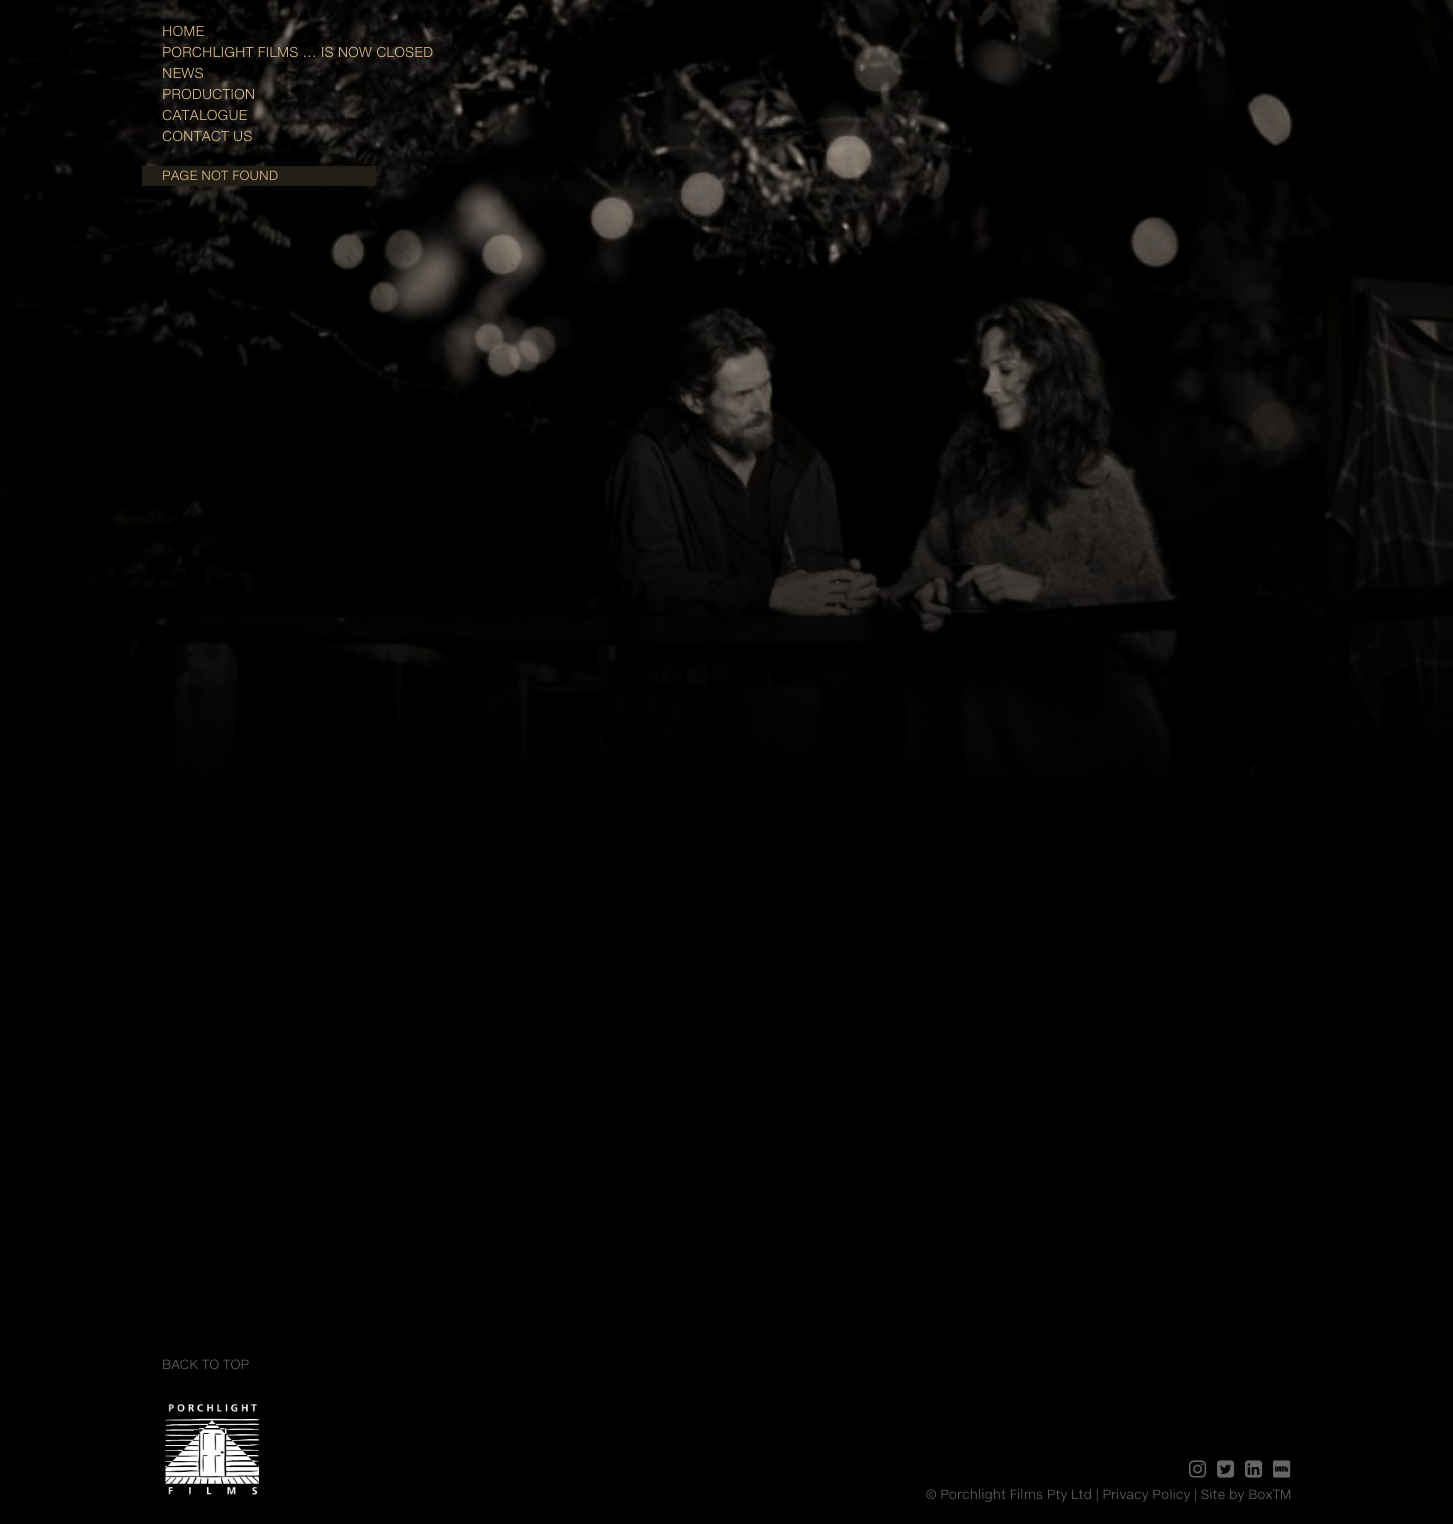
#include <cairo.h>
#include <math.h>
#include <stddef.h>

typedef struct { double x, y; const char *s; } line_t;

static void ink(cairo_t *ctx, unsigned color) {
    cairo_set_source_rgb(ctx, (color >> 16) / 255.0, (color >> 8 & 255) / 255.0, (color & 255) / 255.0);
}

static void paste(cairo_t *ctx, const char *path, double x, double y, double w, double h) {
    cairo_surface_t *image = cairo_image_surface_create_from_png(path);
    cairo_save(ctx);
    cairo_set_source_surface(ctx, image, x, y);
    cairo_rectangle(ctx, x, y, w, h);
    cairo_fill(ctx);
    cairo_restore(ctx);
    cairo_surface_destroy(image);
}

int main(void) {
    cairo_surface_t *surface = cairo_image_surface_create(CAIRO_FORMAT_RGB24, 1453, 1524);
    cairo_t *ctx = cairo_create(surface);
    cairo_font_options_t *options = cairo_font_options_create();
    cairo_font_options_set_hint_metrics(options, CAIRO_HINT_METRICS_OFF);
    cairo_font_options_set_hint_style(options, CAIRO_HINT_STYLE_NONE);
    cairo_set_font_options(ctx, options);
    cairo_set_miter_limit(ctx, 4);
    ink(ctx, 0x000000);
    cairo_paint(ctx);
    paste(ctx, "media/1.png", 0, 0, 1453, 778);
    cairo_select_font_face(ctx, "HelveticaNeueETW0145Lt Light", CAIRO_FONT_SLANT_NORMAL, CAIRO_FONT_WEIGHT_NORMAL);
    cairo_set_font_size(ctx, 14);
    ink(ctx, 0xE2C28A);
    {
        static const line_t items[] = {
            {162, 36, "HOME"},
            {162, 57, "PORCHLIGHT FILMS … IS NOW CLOSED"},
            {162, 78, "NEWS"},
            {162, 99, "PRODUCTION"},
            {162, 120, "CATALOGUE"},
            {162, 141, "CONTACT US"},
        };
        for (size_t i = 0; i < sizeof items / sizeof *items; i++) {
            cairo_move_to(ctx, items[i].x, items[i].y);
            cairo_show_text(ctx, items[i].s);
        }
    }
    ink(ctx, 0x221D15);
    cairo_rectangle(ctx, 142, 166, 234, 20);
    cairo_fill(ctx);
    cairo_set_font_size(ctx, 13);
    ink(ctx, 0xE2C28A);
    cairo_move_to(ctx, 162, 180);
    cairo_show_text(ctx, "PAGE NOT FOUND");
    ink(ctx, 0x666666);
    cairo_move_to(ctx, 162, 1369);
    cairo_show_text(ctx, "BACK TO TOP");
    paste(ctx, "media/2.png", 165, 1404, 95, 91);
    paste(ctx, "media/3.png", 1189, 1460, 18, 18);
    paste(ctx, "media/4.png", 1217, 1460, 18, 18);
    paste(ctx, "media/5.png", 1245, 1460, 18, 18);
    paste(ctx, "media/6.png", 1273, 1460, 18, 18);
    cairo_move_to(ctx, 926, 1499);
    cairo_show_text(ctx, "© Porchlight Films Pty Ltd | Privacy Policy");
    cairo_move_to(ctx, 1194, 1499);
    cairo_show_text(ctx, "| Site by BoxTM");
    cairo_surface_write_to_png(surface, "image.png");
    cairo_font_options_destroy(options);
    cairo_destroy(ctx);
    cairo_surface_destroy(surface);
    return 0;
}
